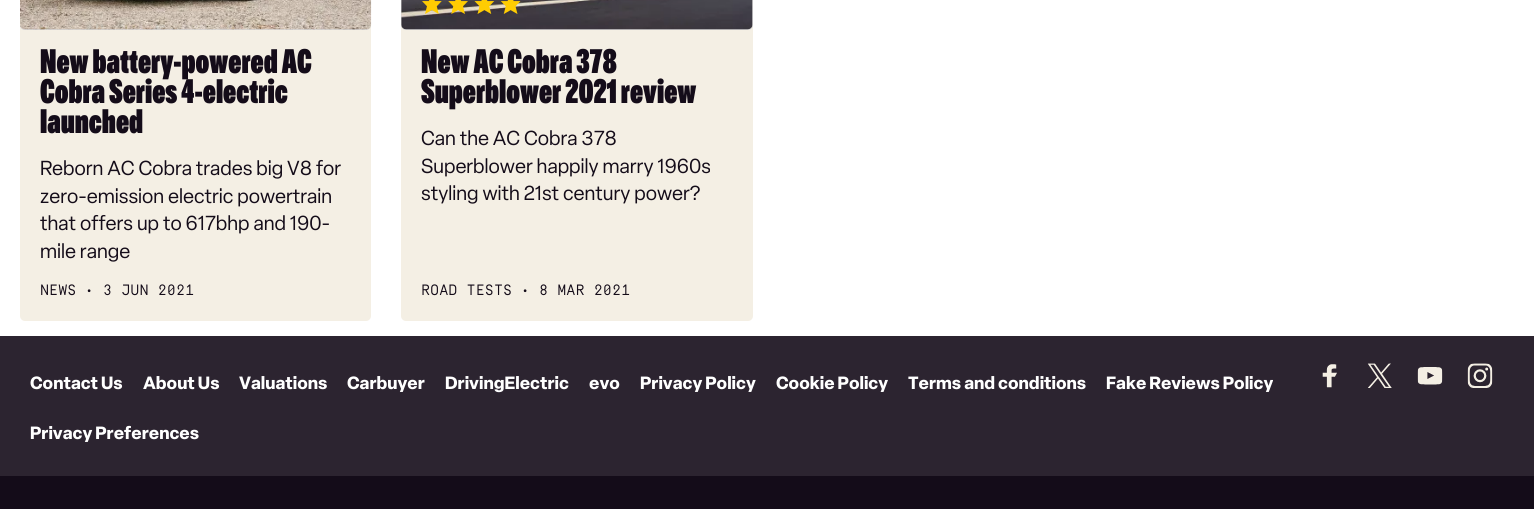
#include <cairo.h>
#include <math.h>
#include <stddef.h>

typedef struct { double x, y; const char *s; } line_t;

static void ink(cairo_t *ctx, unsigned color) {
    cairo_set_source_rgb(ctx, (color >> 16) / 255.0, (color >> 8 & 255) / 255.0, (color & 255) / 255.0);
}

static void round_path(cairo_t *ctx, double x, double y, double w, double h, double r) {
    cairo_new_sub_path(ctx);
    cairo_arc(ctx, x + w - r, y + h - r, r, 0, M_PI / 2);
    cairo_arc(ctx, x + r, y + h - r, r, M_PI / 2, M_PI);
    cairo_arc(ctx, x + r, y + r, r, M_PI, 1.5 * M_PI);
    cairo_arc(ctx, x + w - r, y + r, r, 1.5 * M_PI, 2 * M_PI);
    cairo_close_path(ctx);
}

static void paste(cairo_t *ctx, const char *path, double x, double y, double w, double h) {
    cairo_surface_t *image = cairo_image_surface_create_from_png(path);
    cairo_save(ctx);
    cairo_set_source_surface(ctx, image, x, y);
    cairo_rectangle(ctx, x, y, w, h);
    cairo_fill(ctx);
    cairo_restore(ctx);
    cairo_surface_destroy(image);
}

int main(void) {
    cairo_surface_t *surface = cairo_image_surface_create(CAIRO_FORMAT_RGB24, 1534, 509);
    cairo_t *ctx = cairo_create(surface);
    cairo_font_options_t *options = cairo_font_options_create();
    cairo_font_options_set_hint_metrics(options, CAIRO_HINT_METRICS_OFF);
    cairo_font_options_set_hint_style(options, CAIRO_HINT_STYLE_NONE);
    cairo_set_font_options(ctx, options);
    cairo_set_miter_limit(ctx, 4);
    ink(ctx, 0xFFFFFF);
    cairo_paint(ctx);
    ink(ctx, 0xF4EFE4);
    round_path(ctx, 20, -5, 351, 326, 5);
    cairo_fill(ctx);
    ink(ctx, 0xD5D4D4);
    round_path(ctx, 20, -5, 351, 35, 5);
    cairo_fill(ctx);
    paste(ctx, "media/1.png", 20, 0, 352, 30);
    cairo_select_font_face(ctx, "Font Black", CAIRO_FONT_SLANT_NORMAL, CAIRO_FONT_WEIGHT_NORMAL);
    cairo_set_font_size(ctx, 35);
    ink(ctx, 0x140C19);
    {
        static const line_t items[] = {
            {40, 73, "New battery-powered AC"},
            {40, 103, "Cobra Series 4-electric"},
            {40, 133, "launched"},
        };
        for (size_t i = 0; i < sizeof items / sizeof *items; i++) {
            cairo_move_to(ctx, items[i].x, items[i].y);
            cairo_show_text(ctx, items[i].s);
        }
    }
    cairo_select_font_face(ctx, "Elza", CAIRO_FONT_SLANT_NORMAL, CAIRO_FONT_WEIGHT_NORMAL);
    cairo_set_font_size(ctx, 20);
    {
        static const line_t items[] = {
            {40, 175, "Reborn AC Cobra trades big V8 for"},
            {40, 203, "zero-emission electric powertrain"},
            {40, 230, "that offers up to 617bhp and 190-"},
            {40, 258, "mile range"},
        };
        for (size_t i = 0; i < sizeof items / sizeof *items; i++) {
            cairo_move_to(ctx, items[i].x, items[i].y);
            cairo_show_text(ctx, items[i].s);
        }
    }
    cairo_select_font_face(ctx, "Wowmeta", CAIRO_FONT_SLANT_NORMAL, CAIRO_FONT_WEIGHT_NORMAL);
    cairo_set_font_size(ctx, 15);
    cairo_move_to(ctx, 40, 295);
    cairo_show_text(ctx, "NEWS");
    cairo_select_font_face(ctx, "Elza", CAIRO_FONT_SLANT_NORMAL, CAIRO_FONT_WEIGHT_NORMAL);
    cairo_move_to(ctx, 86, 295);
    cairo_show_text(ctx, "•");
    cairo_select_font_face(ctx, "Wowmeta", CAIRO_FONT_SLANT_NORMAL, CAIRO_FONT_WEIGHT_NORMAL);
    cairo_move_to(ctx, 103, 295);
    cairo_show_text(ctx, "3 JUN 2021");
    ink(ctx, 0xF4EFE4);
    round_path(ctx, 401, -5, 352, 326, 5);
    cairo_fill(ctx);
    ink(ctx, 0xD5D4D4);
    round_path(ctx, 401, -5, 352, 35, 5);
    cairo_fill(ctx);
    paste(ctx, "media/2.png", 401, 0, 352, 30);
    paste(ctx, "media/3.png", 422, 0, 20, 14);
    paste(ctx, "media/4.png", 448, 0, 20, 14);
    paste(ctx, "media/5.png", 474, 0, 21, 14);
    paste(ctx, "media/6.png", 500, 0, 21, 14);
    cairo_select_font_face(ctx, "Font Black", CAIRO_FONT_SLANT_NORMAL, CAIRO_FONT_WEIGHT_NORMAL);
    cairo_set_font_size(ctx, 35);
    ink(ctx, 0x140C19);
    cairo_move_to(ctx, 421, 73);
    cairo_show_text(ctx, "New AC Cobra 378");
    cairo_move_to(ctx, 421, 103);
    cairo_show_text(ctx, "Superblower 2021 review");
    cairo_select_font_face(ctx, "Elza", CAIRO_FONT_SLANT_NORMAL, CAIRO_FONT_WEIGHT_NORMAL);
    cairo_set_font_size(ctx, 20);
    {
        static const line_t items[] = {
            {421, 145, "Can the AC Cobra 378"},
            {421, 173, "Superblower happily marry 1960s"},
            {421, 200, "styling with 21st century power?"},
        };
        for (size_t i = 0; i < sizeof items / sizeof *items; i++) {
            cairo_move_to(ctx, items[i].x, items[i].y);
            cairo_show_text(ctx, items[i].s);
        }
    }
    cairo_select_font_face(ctx, "Wowmeta", CAIRO_FONT_SLANT_NORMAL, CAIRO_FONT_WEIGHT_NORMAL);
    cairo_set_font_size(ctx, 15);
    cairo_move_to(ctx, 421, 295);
    cairo_show_text(ctx, "ROAD TESTS");
    cairo_select_font_face(ctx, "Elza", CAIRO_FONT_SLANT_NORMAL, CAIRO_FONT_WEIGHT_NORMAL);
    cairo_move_to(ctx, 522, 295);
    cairo_show_text(ctx, "•");
    cairo_select_font_face(ctx, "Wowmeta", CAIRO_FONT_SLANT_NORMAL, CAIRO_FONT_WEIGHT_NORMAL);
    cairo_move_to(ctx, 539, 295);
    cairo_show_text(ctx, "8 MAR 2021");
    ink(ctx, 0x2C2430);
    cairo_rectangle(ctx, 0, 336, 1534, 140);
    cairo_fill(ctx);
    cairo_select_font_face(ctx, "Elza", CAIRO_FONT_SLANT_NORMAL, CAIRO_FONT_WEIGHT_BOLD);
    cairo_set_font_size(ctx, 17.5);
    ink(ctx, 0xFFFFFF);
    {
        static const line_t items[] = {
            {30, 389, "Contact Us"},
            {143, 389, "About Us"},
            {239, 389, "Valuations"},
            {347, 389, "Carbuyer"},
            {445, 389, "DrivingElectric"},
            {589, 389, "evo"},
            {640, 389, "Privacy Policy"},
            {776, 389, "Cookie Policy"},
            {908, 389, "Terms and conditions"},
            {1106, 389, "Fake Reviews Policy"},
            {30, 439, "Privacy Preferences"},
        };
        for (size_t i = 0; i < sizeof items / sizeof *items; i++) {
            cairo_move_to(ctx, items[i].x, items[i].y);
            cairo_show_text(ctx, items[i].s);
        }
    }
    paste(ctx, "media/7.png", 1322, 364, 15, 24);
    paste(ctx, "media/8.png", 1367, 363, 25, 25);
    paste(ctx, "media/9.png", 1417, 367, 26, 18);
    paste(ctx, "media/10.png", 1467, 363, 26, 25);
    ink(ctx, 0x140C19);
    cairo_rectangle(ctx, 0, 476, 1534, 33);
    cairo_fill(ctx);
    cairo_surface_write_to_png(surface, "image.png");
    cairo_font_options_destroy(options);
    cairo_destroy(ctx);
    cairo_surface_destroy(surface);
    return 0;
}
